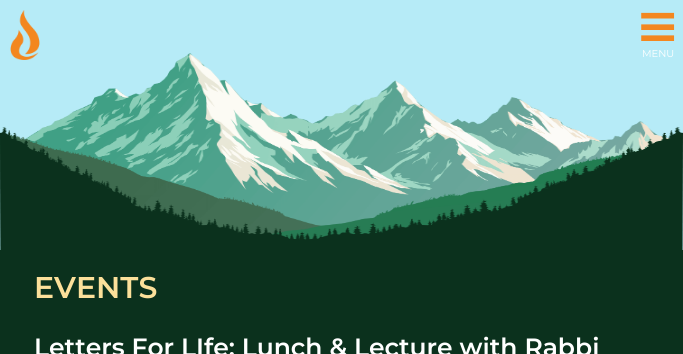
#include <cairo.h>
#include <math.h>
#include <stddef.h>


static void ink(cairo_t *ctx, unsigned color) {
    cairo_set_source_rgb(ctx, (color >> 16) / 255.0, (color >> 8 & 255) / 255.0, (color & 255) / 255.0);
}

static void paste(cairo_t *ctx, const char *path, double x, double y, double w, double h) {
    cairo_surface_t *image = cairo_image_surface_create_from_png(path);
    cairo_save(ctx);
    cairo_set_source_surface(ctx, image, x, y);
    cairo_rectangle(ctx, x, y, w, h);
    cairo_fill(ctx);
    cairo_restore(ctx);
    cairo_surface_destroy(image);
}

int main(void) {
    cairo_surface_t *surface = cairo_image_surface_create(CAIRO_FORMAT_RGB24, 683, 354);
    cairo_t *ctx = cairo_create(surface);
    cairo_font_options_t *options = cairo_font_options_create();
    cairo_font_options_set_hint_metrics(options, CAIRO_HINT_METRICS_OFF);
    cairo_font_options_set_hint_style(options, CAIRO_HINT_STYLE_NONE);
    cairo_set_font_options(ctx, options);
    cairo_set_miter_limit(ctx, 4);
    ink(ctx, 0x0B311D);
    cairo_paint(ctx);
    ink(ctx, 0xB6EBF7);
    cairo_rectangle(ctx, 0, 0, 683, 250);
    cairo_fill(ctx);
    paste(ctx, "media/1.png", 0, 53, 683, 197);
    paste(ctx, "media/2.png", 10, 10, 30, 50);
    paste(ctx, "media/3.png", 641, 12, 34, 29);
    cairo_select_font_face(ctx, "Montserrat", CAIRO_FONT_SLANT_NORMAL, CAIRO_FONT_WEIGHT_NORMAL);
    cairo_set_font_size(ctx, 10);
    ink(ctx, 0xFFFFFF);
    cairo_move_to(ctx, 642, 57);
    cairo_show_text(ctx, "MENU");
    cairo_select_font_face(ctx, "Montserrat SemiBold", CAIRO_FONT_SLANT_NORMAL, CAIRO_FONT_WEIGHT_NORMAL);
    cairo_set_font_size(ctx, 30);
    ink(ctx, 0xFCE09A);
    cairo_move_to(ctx, 34, 298);
    cairo_show_text(ctx, "EVENTS");
    cairo_set_font_size(ctx, 25);
    ink(ctx, 0xFFFFFF);
    cairo_move_to(ctx, 34, 356);
    cairo_show_text(ctx, "Letters For LIfe: Lunch & Lecture with Rabbi");
    cairo_surface_write_to_png(surface, "image.png");
    cairo_font_options_destroy(options);
    cairo_destroy(ctx);
    cairo_surface_destroy(surface);
    return 0;
}
